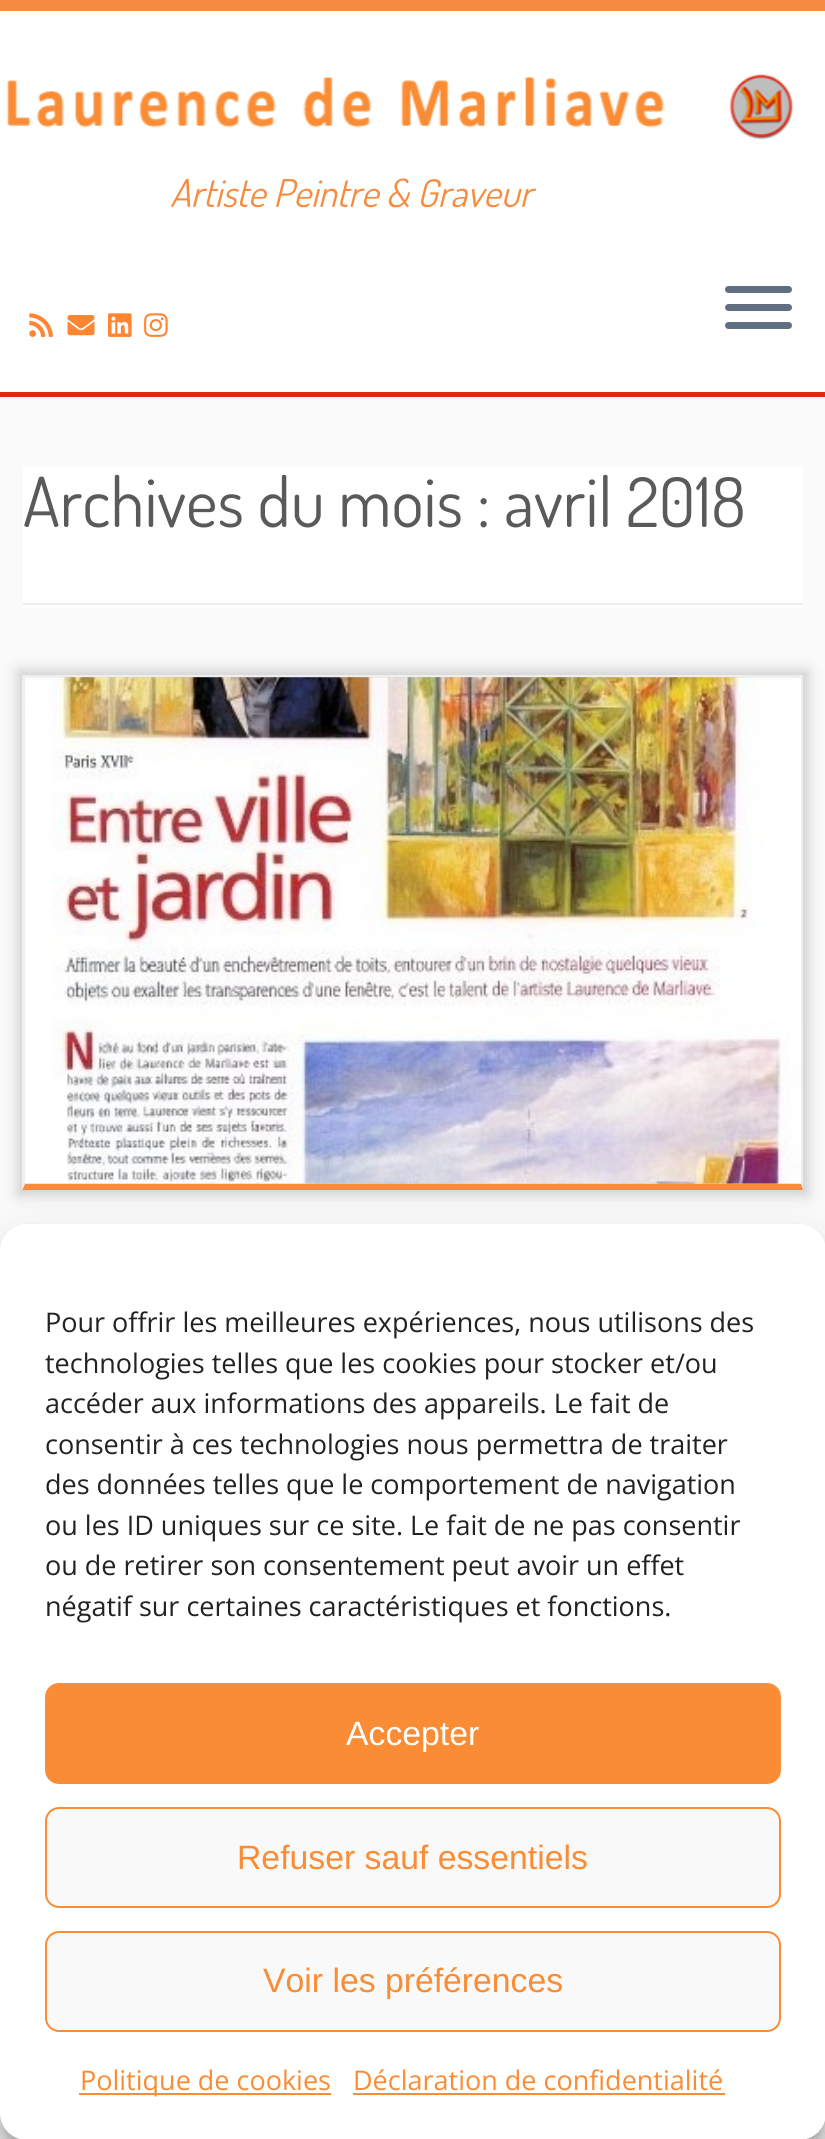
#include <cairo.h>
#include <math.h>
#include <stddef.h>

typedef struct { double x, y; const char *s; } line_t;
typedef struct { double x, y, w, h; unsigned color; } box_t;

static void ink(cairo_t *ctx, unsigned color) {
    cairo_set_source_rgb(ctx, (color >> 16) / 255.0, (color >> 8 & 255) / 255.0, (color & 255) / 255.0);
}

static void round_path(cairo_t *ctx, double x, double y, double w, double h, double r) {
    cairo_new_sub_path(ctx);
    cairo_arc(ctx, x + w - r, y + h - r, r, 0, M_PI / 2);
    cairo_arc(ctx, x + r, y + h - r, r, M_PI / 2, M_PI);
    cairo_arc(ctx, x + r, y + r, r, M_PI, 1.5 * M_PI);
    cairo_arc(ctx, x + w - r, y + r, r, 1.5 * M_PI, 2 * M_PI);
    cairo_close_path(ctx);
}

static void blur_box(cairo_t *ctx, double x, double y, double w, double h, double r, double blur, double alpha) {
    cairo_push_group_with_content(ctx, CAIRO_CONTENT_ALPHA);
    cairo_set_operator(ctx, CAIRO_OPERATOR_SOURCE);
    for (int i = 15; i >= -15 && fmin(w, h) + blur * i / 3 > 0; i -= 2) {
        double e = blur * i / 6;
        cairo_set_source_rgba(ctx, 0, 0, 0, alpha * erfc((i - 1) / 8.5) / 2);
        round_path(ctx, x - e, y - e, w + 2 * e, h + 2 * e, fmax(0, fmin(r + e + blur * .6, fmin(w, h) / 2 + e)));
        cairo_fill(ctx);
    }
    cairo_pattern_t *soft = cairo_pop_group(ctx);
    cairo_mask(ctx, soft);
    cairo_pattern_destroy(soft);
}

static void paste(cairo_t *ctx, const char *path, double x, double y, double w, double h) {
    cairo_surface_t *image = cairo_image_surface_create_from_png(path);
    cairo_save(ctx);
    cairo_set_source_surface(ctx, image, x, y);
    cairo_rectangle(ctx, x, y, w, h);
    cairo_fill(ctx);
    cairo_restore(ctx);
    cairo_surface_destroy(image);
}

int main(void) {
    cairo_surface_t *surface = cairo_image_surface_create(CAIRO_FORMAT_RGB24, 825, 2139);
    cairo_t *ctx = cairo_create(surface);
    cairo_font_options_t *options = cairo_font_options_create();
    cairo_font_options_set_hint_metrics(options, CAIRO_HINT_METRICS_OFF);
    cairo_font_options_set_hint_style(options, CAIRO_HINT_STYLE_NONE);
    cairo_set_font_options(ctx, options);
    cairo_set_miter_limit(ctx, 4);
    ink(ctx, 0xFAFAFA);
    cairo_paint(ctx);
    {
        static const box_t items[] = {
            {0, 11, 825, 381, 0xFFFFFF},
            {0, 0, 825, 11, 0xF78C40},
            {0, 392, 825, 5, 0xDE2914},
        };
        for (size_t i = 0; i < sizeof items / sizeof *items; i++) {
            ink(ctx, items[i].color);
            cairo_rectangle(ctx, items[i].x, items[i].y, items[i].w, items[i].h);
            cairo_fill(ctx);
        }
    }
    paste(ctx, "media/1.png", 6, 74, 788, 66);
    cairo_select_font_face(ctx, "Dosis", CAIRO_FONT_SLANT_ITALIC, CAIRO_FONT_WEIGHT_NORMAL);
    cairo_set_font_size(ctx, 38.25);
    ink(ctx, 0xF78C40);
    cairo_move_to(ctx, 170, 207);
    cairo_show_text(ctx, "Artiste Peintre & Graveur");
    paste(ctx, "media/2.png", 29, 313, 24, 24);
    paste(ctx, "media/3.png", 67, 315, 28, 21);
    paste(ctx, "media/4.png", 108, 313, 24, 24);
    paste(ctx, "media/5.png", 144, 313, 24, 24);
    ink(ctx, 0x5F6F81);
    round_path(ctx, 725, 286, 67, 7, 3.5);
    cairo_fill(ctx);
    round_path(ctx, 725, 304, 67, 7, 3.5);
    cairo_fill(ctx);
    round_path(ctx, 725, 322, 67, 7, 3.5);
    cairo_fill(ctx);
    ink(ctx, 0xFFFFFF);
    cairo_rectangle(ctx, 23, 466, 780, 142);
    cairo_fill(ctx);
    cairo_select_font_face(ctx, "Dosis", CAIRO_FONT_SLANT_NORMAL, CAIRO_FONT_WEIGHT_NORMAL);
    cairo_set_font_size(ctx, 68.4);
    ink(ctx, 0x5A5A5A);
    cairo_move_to(ctx, 23, 527);
    cairo_show_text(ctx, "Archives du mois : avril 2018");
    ink(ctx, 0xEEEEEE);
    cairo_rectangle(ctx, 23, 603, 780, 2);
    cairo_fill(ctx);
    ink(ctx, 0xCCCCCC);
    blur_box(ctx, 18, 671, 790, 524, 0, 7, 1);
    ink(ctx, 0xEEEEEE);
    cairo_rectangle(ctx, 23, 675, 780, 2);
    cairo_fill(ctx);
    cairo_new_path(ctx);
    cairo_move_to(ctx, 803, 675);
    cairo_line_to(ctx, 803, 1190);
    cairo_line_to(ctx, 801, 1184);
    cairo_line_to(ctx, 801, 677);
    cairo_close_path(ctx);
    cairo_fill(ctx);
    ink(ctx, 0xF78C40);
    cairo_new_path(ctx);
    cairo_move_to(ctx, 803, 1190);
    cairo_line_to(ctx, 22, 1190);
    cairo_line_to(ctx, 25, 1184);
    cairo_line_to(ctx, 801, 1184);
    cairo_close_path(ctx);
    cairo_fill(ctx);
    ink(ctx, 0xEEEEEE);
    cairo_new_path(ctx);
    cairo_move_to(ctx, 22, 1190);
    cairo_line_to(ctx, 22, 675);
    cairo_line_to(ctx, 25, 677);
    cairo_line_to(ctx, 25, 1184);
    cairo_close_path(ctx);
    cairo_fill(ctx);
    paste(ctx, "media/6.png", 25, 677, 776, 507);
    ink(ctx, 0x000000);
    blur_box(ctx, 0, 1238, 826, 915, 27, 7, 0.23);
    blur_box(ctx, 0, 1247, 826, 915, 27, 22.5, 0.19);
    ink(ctx, 0xFFFFFF);
    round_path(ctx, 0, 1224, 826, 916, 27);
    cairo_fill(ctx);
    cairo_select_font_face(ctx, "Open Sans", CAIRO_FONT_SLANT_NORMAL, CAIRO_FONT_WEIGHT_NORMAL);
    cairo_set_font_size(ctx, 27);
    ink(ctx, 0x222222);
    {
        static const line_t items[] = {
            {45, 1332, "Pour offrir les meilleures expériences, nous utilisons des"},
            {45, 1373, "technologies telles que les cookies pour stocker et/ou"},
            {45, 1413, "accéder aux informations des appareils. Le fait de"},
            {45, 1454, "consentir à ces technologies nous permettra de traiter"},
            {45, 1494, "des données telles que le comportement de navigation"},
            {45, 1535, "ou les ID uniques sur ce site. Le fait de ne pas consentir"},
            {45, 1575, "ou de retirer son consentement peut avoir un effet"},
            {45, 1616, "négatif sur certaines caractéristiques et fonctions."},
        };
        for (size_t i = 0; i < sizeof items / sizeof *items; i++) {
            cairo_move_to(ctx, items[i].x, items[i].y);
            cairo_show_text(ctx, items[i].s);
        }
    }
    ink(ctx, 0xF98C34);
    round_path(ctx, 46, 1684, 734, 99, 13);
    cairo_fill_preserve(ctx);
    cairo_stroke(ctx);
    cairo_select_font_face(ctx, "Liberation Sans", CAIRO_FONT_SLANT_NORMAL, CAIRO_FONT_WEIGHT_NORMAL);
    cairo_set_font_size(ctx, 33.75);
    ink(ctx, 0xFFFFFF);
    cairo_move_to(ctx, 346, 1745);
    cairo_show_text(ctx, "Accepter");
    ink(ctx, 0xF9F9F9);
    round_path(ctx, 46, 1808, 734, 99, 13);
    cairo_fill_preserve(ctx);
    ink(ctx, 0xF98C34);
    cairo_stroke(ctx);
    cairo_move_to(ctx, 237, 1869);
    cairo_show_text(ctx, "Refuser sauf essentiels");
    ink(ctx, 0xF9F9F9);
    round_path(ctx, 46, 1932, 734, 99, 13);
    cairo_fill_preserve(ctx);
    ink(ctx, 0xF98C34);
    cairo_stroke(ctx);
    cairo_move_to(ctx, 263, 1992);
    cairo_show_text(ctx, "Voir les préférences");
    cairo_rectangle(ctx, 79, 2093, 252, 2);
    cairo_fill(ctx);
    cairo_select_font_face(ctx, "Open Sans", CAIRO_FONT_SLANT_NORMAL, CAIRO_FONT_WEIGHT_NORMAL);
    cairo_set_font_size(ctx, 27);
    cairo_move_to(ctx, 80, 2090);
    cairo_show_text(ctx, "Politique de cookies");
    cairo_move_to(ctx, 353, 2090);
    cairo_show_text(ctx, "Déclaration de confidentialité");
    cairo_rectangle(ctx, 353, 2093, 372, 2);
    cairo_fill(ctx);
    cairo_surface_write_to_png(surface, "image.png");
    cairo_font_options_destroy(options);
    cairo_destroy(ctx);
    cairo_surface_destroy(surface);
    return 0;
}
